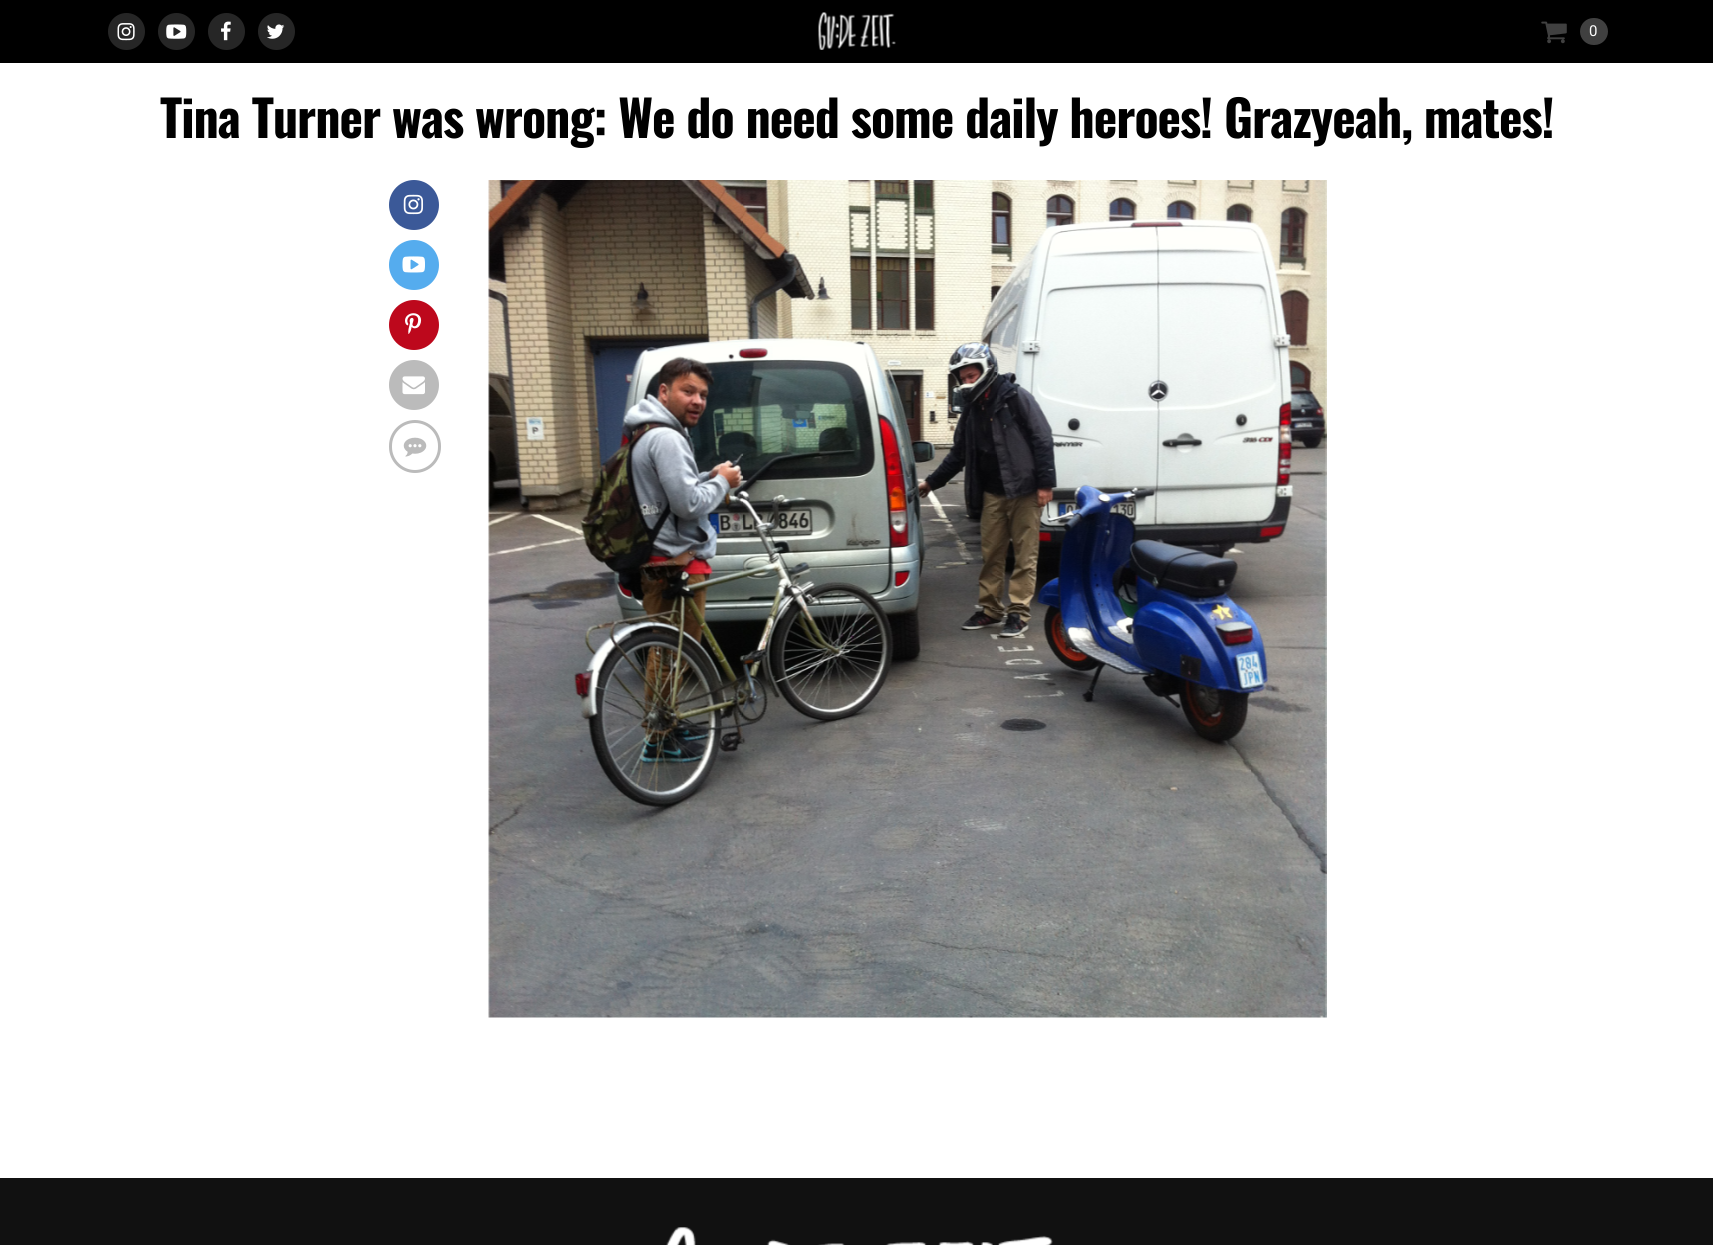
#include <cairo.h>
#include <math.h>
#include <stddef.h>


static void ink(cairo_t *ctx, unsigned color) {
    cairo_set_source_rgb(ctx, (color >> 16) / 255.0, (color >> 8 & 255) / 255.0, (color & 255) / 255.0);
}

static void write_spaced(cairo_t *ctx, double x, double y, const char *s, double letter, double word) {
    cairo_move_to(ctx, x, y);
    while (*s) {
        char ch[5] = {0};
        int n = 0;
        do ch[n++] = *s++; while ((*s & 0xC0) == 0x80);
        cairo_show_text(ctx, ch);
        cairo_rel_move_to(ctx, letter + word * (*ch == ' '), 0);
    }
}

static void round_path(cairo_t *ctx, double x, double y, double w, double h, double r) {
    cairo_new_sub_path(ctx);
    cairo_arc(ctx, x + w - r, y + h - r, r, 0, M_PI / 2);
    cairo_arc(ctx, x + r, y + h - r, r, M_PI / 2, M_PI);
    cairo_arc(ctx, x + r, y + r, r, M_PI, 1.5 * M_PI);
    cairo_arc(ctx, x + w - r, y + r, r, 1.5 * M_PI, 2 * M_PI);
    cairo_close_path(ctx);
}

static void paste(cairo_t *ctx, const char *path, double x, double y, double w, double h) {
    cairo_surface_t *image = cairo_image_surface_create_from_png(path);
    cairo_save(ctx);
    cairo_set_source_surface(ctx, image, x, y);
    cairo_rectangle(ctx, x, y, w, h);
    cairo_fill(ctx);
    cairo_restore(ctx);
    cairo_surface_destroy(image);
}

int main(void) {
    cairo_surface_t *surface = cairo_image_surface_create(CAIRO_FORMAT_RGB24, 1713, 1245);
    cairo_t *ctx = cairo_create(surface);
    cairo_font_options_t *options = cairo_font_options_create();
    cairo_font_options_set_hint_metrics(options, CAIRO_HINT_METRICS_OFF);
    cairo_font_options_set_hint_style(options, CAIRO_HINT_STYLE_NONE);
    cairo_set_font_options(ctx, options);
    cairo_set_miter_limit(ctx, 4);
    ink(ctx, 0xFFFFFF);
    cairo_paint(ctx);
    ink(ctx, 0x000000);
    cairo_rectangle(ctx, 0, 0, 1713, 63);
    cairo_fill(ctx);
    ink(ctx, 0x262626);
    cairo_arc(ctx, 126.5, 31.5, 18.5, 0, 2 * M_PI);
    cairo_fill(ctx);
    paste(ctx, "media/1.png", 117, 23, 18, 18);
    cairo_arc(ctx, 176.5, 31.5, 18.5, 0, 2 * M_PI);
    cairo_fill(ctx);
    paste(ctx, "media/2.png", 166, 24, 21, 15);
    cairo_arc(ctx, 226.5, 31.5, 18.5, 0, 2 * M_PI);
    cairo_fill(ctx);
    paste(ctx, "media/3.png", 221, 21, 10, 20);
    cairo_arc(ctx, 276.5, 31.5, 18.5, 0, 2 * M_PI);
    cairo_fill(ctx);
    paste(ctx, "media/4.png", 267, 24, 18, 15);
    paste(ctx, "media/5.png", 818, 12, 78, 38);
    paste(ctx, "media/6.png", 1541, 21, 26, 23);
    ink(ctx, 0x404040);
    round_path(ctx, 1580, 18, 28, 27, 13.5);
    cairo_fill(ctx);
    cairo_select_font_face(ctx, "Roboto", CAIRO_FONT_SLANT_NORMAL, CAIRO_FONT_WEIGHT_NORMAL);
    cairo_set_font_size(ctx, 15);
    ink(ctx, 0xFFFFFF);
    cairo_move_to(ctx, 1589, 36);
    cairo_show_text(ctx, "0");
    cairo_select_font_face(ctx, "Oswald", CAIRO_FONT_SLANT_NORMAL, CAIRO_FONT_WEIGHT_BOLD);
    cairo_set_font_size(ctx, 50);
    ink(ctx, 0x000000);
    write_spaced(ctx, 160, 138, "Tina Turner was wrong: We do need some daily heroes! Grazyeah, mates!", -1, 0);
    ink(ctx, 0x3B5998);
    cairo_new_path(ctx);
    cairo_arc(ctx, 414, 205, 25, 0, 2 * M_PI);
    cairo_fill(ctx);
    paste(ctx, "media/7.png", 403, 194, 21, 21);
    ink(ctx, 0x55ACEE);
    cairo_arc(ctx, 414, 265, 25, 0, 2 * M_PI);
    cairo_fill(ctx);
    paste(ctx, "media/8.png", 402, 256, 23, 17);
    ink(ctx, 0xBD081C);
    cairo_arc(ctx, 414, 325, 25, 0, 2 * M_PI);
    cairo_fill(ctx);
    paste(ctx, "media/9.png", 405, 313, 17, 21);
    ink(ctx, 0xBBBBBB);
    cairo_arc(ctx, 414, 385, 25, 0, 2 * M_PI);
    cairo_fill(ctx);
    paste(ctx, "media/10.png", 402, 376, 23, 19);
    round_path(ctx, 390.5, 421.5, 49, 50, 24.5);
    cairo_set_line_width(ctx, 3);
    cairo_stroke(ctx);
    paste(ctx, "media/11.png", 403, 437, 24, 20);
    paste(ctx, "media/12.png", 488, 180, 839, 838);
    ink(ctx, 0x111111);
    cairo_rectangle(ctx, 0, 1178, 1713, 67);
    cairo_fill(ctx);
    paste(ctx, "media/13.png", 666, 1227, 387, 18);
    cairo_surface_write_to_png(surface, "image.png");
    cairo_font_options_destroy(options);
    cairo_destroy(ctx);
    cairo_surface_destroy(surface);
    return 0;
}
